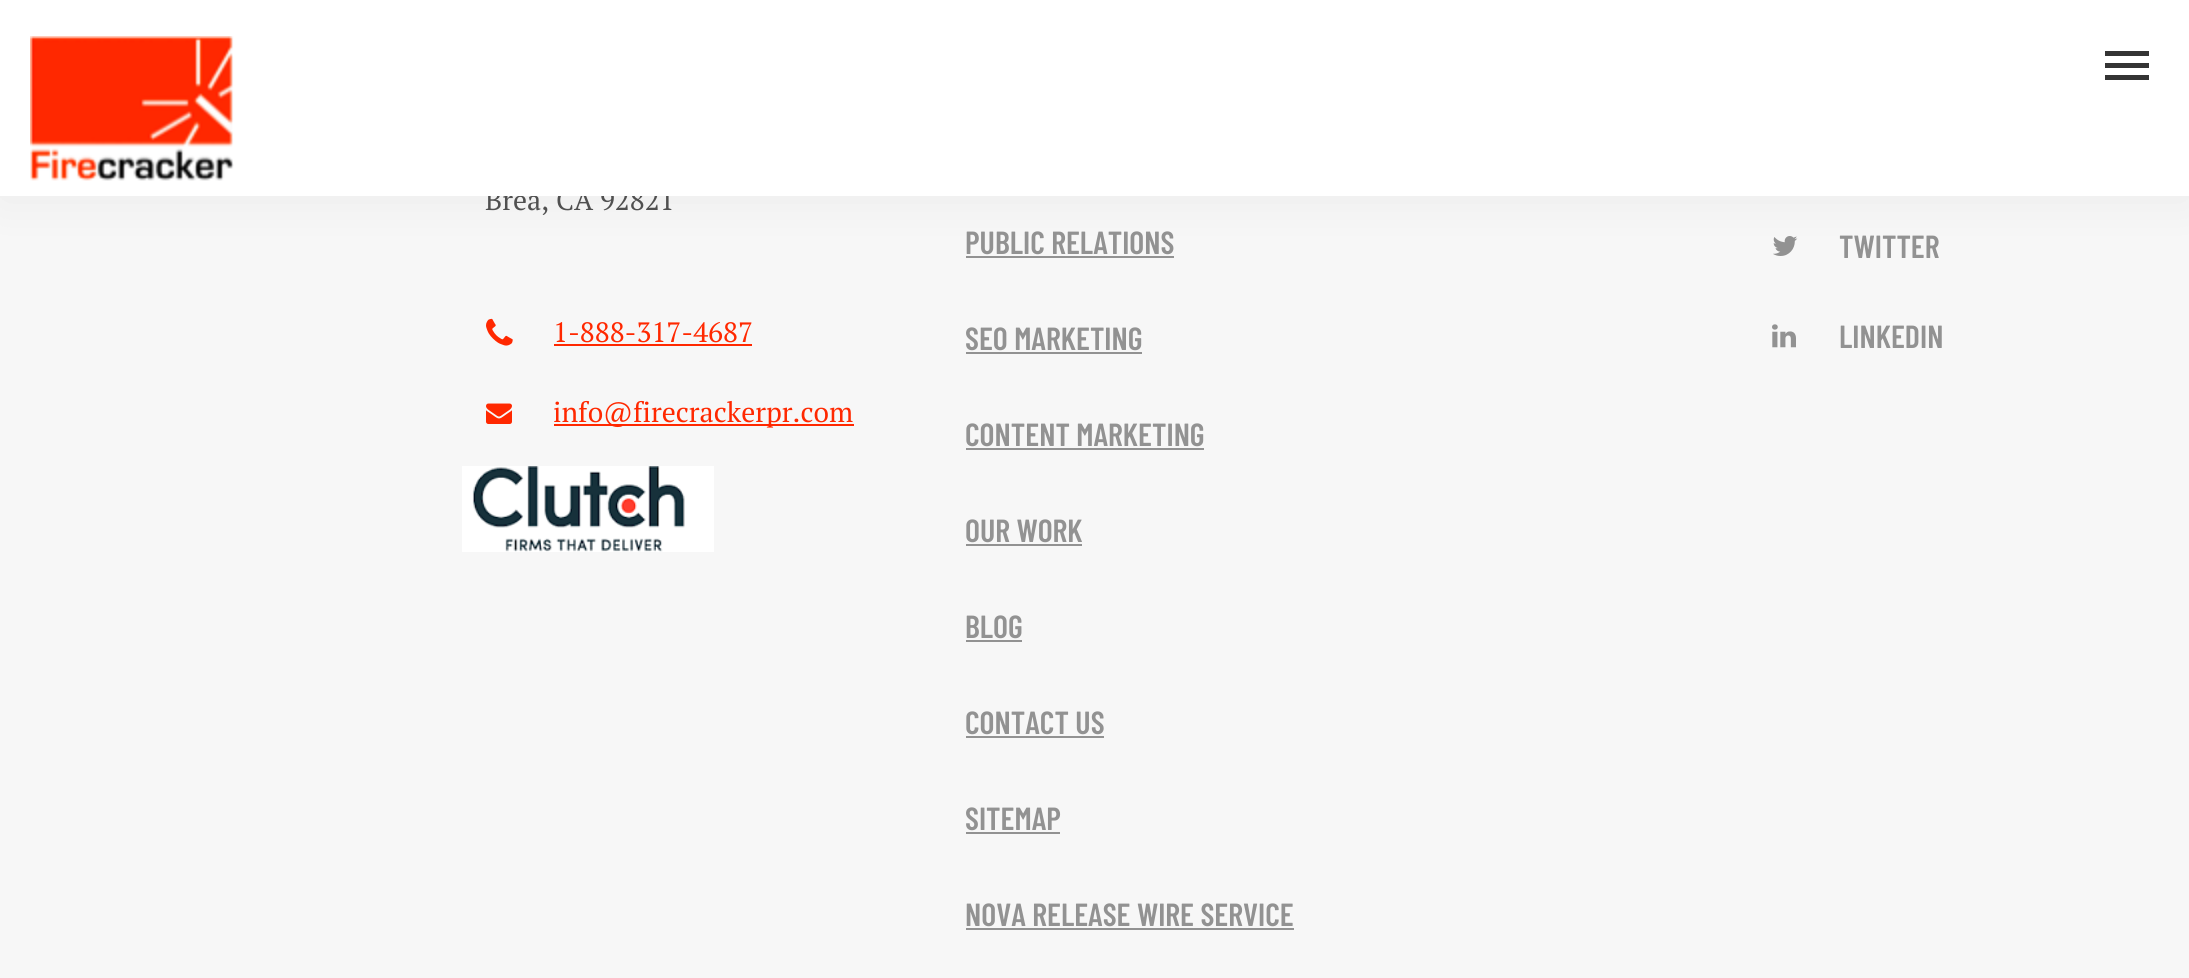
#include <cairo.h>
#include <math.h>
#include <stddef.h>


static void ink(cairo_t *ctx, unsigned color) {
    cairo_set_source_rgb(ctx, (color >> 16) / 255.0, (color >> 8 & 255) / 255.0, (color & 255) / 255.0);
}

static void round_path(cairo_t *ctx, double x, double y, double w, double h, double r) {
    cairo_new_sub_path(ctx);
    cairo_arc(ctx, x + w - r, y + h - r, r, 0, M_PI / 2);
    cairo_arc(ctx, x + r, y + h - r, r, M_PI / 2, M_PI);
    cairo_arc(ctx, x + r, y + r, r, M_PI, 1.5 * M_PI);
    cairo_arc(ctx, x + w - r, y + r, r, 1.5 * M_PI, 2 * M_PI);
    cairo_close_path(ctx);
}

static void blur_box(cairo_t *ctx, double x, double y, double w, double h, double r, double blur, double alpha) {
    cairo_push_group_with_content(ctx, CAIRO_CONTENT_ALPHA);
    cairo_set_operator(ctx, CAIRO_OPERATOR_SOURCE);
    for (int i = 15; i >= -15 && fmin(w, h) + blur * i / 3 > 0; i -= 2) {
        double e = blur * i / 6;
        cairo_set_source_rgba(ctx, 0, 0, 0, alpha * erfc((i - 1) / 8.5) / 2);
        round_path(ctx, x - e, y - e, w + 2 * e, h + 2 * e, fmax(0, fmin(r + e + blur * .6, fmin(w, h) / 2 + e)));
        cairo_fill(ctx);
    }
    cairo_pattern_t *soft = cairo_pop_group(ctx);
    cairo_mask(ctx, soft);
    cairo_pattern_destroy(soft);
}

static void paste(cairo_t *ctx, const char *path, double x, double y, double w, double h) {
    cairo_surface_t *image = cairo_image_surface_create_from_png(path);
    cairo_save(ctx);
    cairo_set_source_surface(ctx, image, x, y);
    cairo_rectangle(ctx, x, y, w, h);
    cairo_fill(ctx);
    cairo_restore(ctx);
    cairo_surface_destroy(image);
}

int main(void) {
    cairo_surface_t *surface = cairo_image_surface_create(CAIRO_FORMAT_RGB24, 2189, 978);
    cairo_t *ctx = cairo_create(surface);
    cairo_font_options_t *options = cairo_font_options_create();
    cairo_font_options_set_hint_metrics(options, CAIRO_HINT_METRICS_OFF);
    cairo_font_options_set_hint_style(options, CAIRO_HINT_STYLE_NONE);
    cairo_set_font_options(ctx, options);
    cairo_set_miter_limit(ctx, 4);
    ink(ctx, 0xF7F7F7);
    cairo_paint(ctx);
    ink(ctx, 0x929292);
    cairo_rectangle(ctx, 966, 256, 208, 2);
    cairo_fill(ctx);
    paste(ctx, "media/5.png", 1773, 236, 25, 20);
    ink(ctx, 0x000000);
    blur_box(ctx, 0, 4, 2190, 196, 0, 24, 0.05);
    cairo_select_font_face(ctx, "PT Serif", CAIRO_FONT_SLANT_NORMAL, CAIRO_FONT_WEIGHT_NORMAL);
    cairo_set_font_size(ctx, 28);
    ink(ctx, 0x505050);
    cairo_move_to(ctx, 485, 210);
    cairo_show_text(ctx, "Brea, CA 92821");
    ink(ctx, 0xFFFFFF);
    cairo_rectangle(ctx, 0, 0, 2189, 196);
    cairo_fill(ctx);
    paste(ctx, "media/1.png", 30, 36, 204, 145);
    ink(ctx, 0x343434);
    cairo_new_path(ctx);
    cairo_move_to(ctx, 2105, 51);
    cairo_line_to(ctx, 2149, 51);
    cairo_line_to(ctx, 2149, 56);
    cairo_line_to(ctx, 2105, 56);
    cairo_close_path(ctx);
    cairo_move_to(ctx, 2105, 68);
    cairo_line_to(ctx, 2105, 63);
    cairo_line_to(ctx, 2149, 63);
    cairo_line_to(ctx, 2149, 68);
    cairo_close_path(ctx);
    cairo_move_to(ctx, 2105, 80);
    cairo_line_to(ctx, 2105, 75);
    cairo_line_to(ctx, 2149, 75);
    cairo_line_to(ctx, 2149, 80);
    cairo_close_path(ctx);
    cairo_fill(ctx);
    paste(ctx, "media/2.png", 486, 318, 27, 28);
    ink(ctx, 0xFF2800);
    cairo_move_to(ctx, 553, 342);
    cairo_show_text(ctx, "1-888-317-4687");
    cairo_rectangle(ctx, 554, 344, 198, 2);
    cairo_fill(ctx);
    paste(ctx, "media/3.png", 486, 403, 26, 21);
    cairo_rectangle(ctx, 554, 424, 300, 2);
    cairo_fill(ctx);
    cairo_move_to(ctx, 553, 422);
    cairo_show_text(ctx, "info@firecrackerpr.com");
    paste(ctx, "media/4.png", 462, 466, 252, 86);
    cairo_select_font_face(ctx, "Barlow Condensed SemiBold", CAIRO_FONT_SLANT_NORMAL, CAIRO_FONT_WEIGHT_NORMAL);
    cairo_set_font_size(ctx, 32);
    ink(ctx, 0x929292);
    cairo_move_to(ctx, 965, 254);
    cairo_show_text(ctx, "PUBLIC RELATIONS");
    cairo_move_to(ctx, 965, 350);
    cairo_show_text(ctx, "SEO MARKETING");
    cairo_rectangle(ctx, 966, 352, 176, 2);
    cairo_fill(ctx);
    cairo_move_to(ctx, 965, 446);
    cairo_show_text(ctx, "CONTENT MARKETING");
    cairo_rectangle(ctx, 966, 448, 238, 2);
    cairo_fill(ctx);
    cairo_move_to(ctx, 965, 542);
    cairo_show_text(ctx, "OUR WORK");
    cairo_rectangle(ctx, 966, 544, 116, 2);
    cairo_fill(ctx);
    cairo_move_to(ctx, 965, 638);
    cairo_show_text(ctx, "BLOG");
    cairo_rectangle(ctx, 966, 640, 56, 2);
    cairo_fill(ctx);
    cairo_move_to(ctx, 965, 734);
    cairo_show_text(ctx, "CONTACT US");
    cairo_rectangle(ctx, 966, 736, 138, 2);
    cairo_fill(ctx);
    cairo_move_to(ctx, 965, 830);
    cairo_show_text(ctx, "SITEMAP");
    cairo_rectangle(ctx, 966, 832, 94, 2);
    cairo_fill(ctx);
    cairo_move_to(ctx, 965, 926);
    cairo_show_text(ctx, "NOVA RELEASE WIRE SERVICE");
    cairo_rectangle(ctx, 966, 928, 328, 2);
    cairo_fill(ctx);
    cairo_move_to(ctx, 1839, 258);
    cairo_show_text(ctx, "TWITTER");
    paste(ctx, "media/6.png", 1772, 324, 24, 24);
    cairo_move_to(ctx, 1839, 348);
    cairo_show_text(ctx, "LINKEDIN");
    cairo_surface_write_to_png(surface, "image.png");
    cairo_font_options_destroy(options);
    cairo_destroy(ctx);
    cairo_surface_destroy(surface);
    return 0;
}
